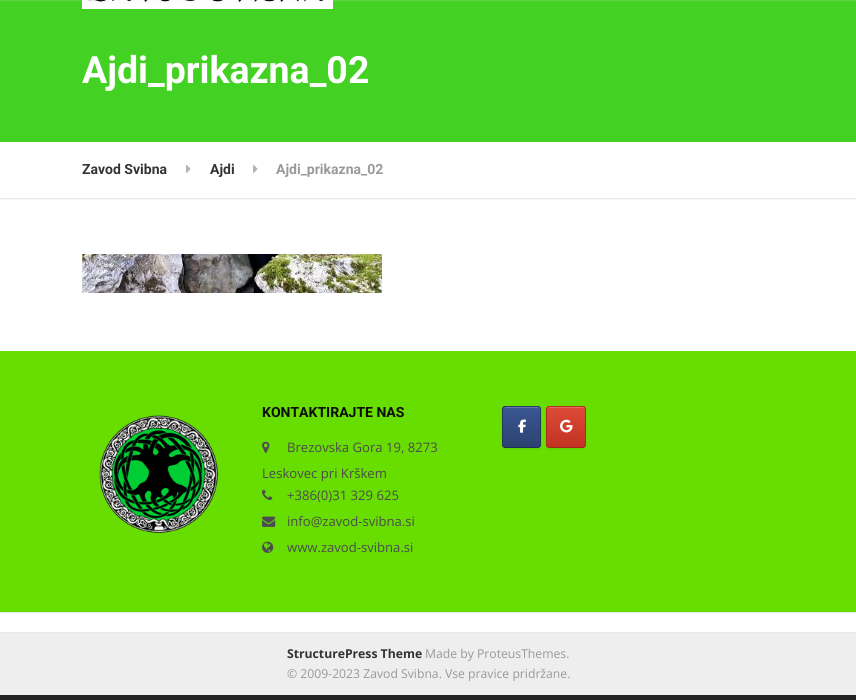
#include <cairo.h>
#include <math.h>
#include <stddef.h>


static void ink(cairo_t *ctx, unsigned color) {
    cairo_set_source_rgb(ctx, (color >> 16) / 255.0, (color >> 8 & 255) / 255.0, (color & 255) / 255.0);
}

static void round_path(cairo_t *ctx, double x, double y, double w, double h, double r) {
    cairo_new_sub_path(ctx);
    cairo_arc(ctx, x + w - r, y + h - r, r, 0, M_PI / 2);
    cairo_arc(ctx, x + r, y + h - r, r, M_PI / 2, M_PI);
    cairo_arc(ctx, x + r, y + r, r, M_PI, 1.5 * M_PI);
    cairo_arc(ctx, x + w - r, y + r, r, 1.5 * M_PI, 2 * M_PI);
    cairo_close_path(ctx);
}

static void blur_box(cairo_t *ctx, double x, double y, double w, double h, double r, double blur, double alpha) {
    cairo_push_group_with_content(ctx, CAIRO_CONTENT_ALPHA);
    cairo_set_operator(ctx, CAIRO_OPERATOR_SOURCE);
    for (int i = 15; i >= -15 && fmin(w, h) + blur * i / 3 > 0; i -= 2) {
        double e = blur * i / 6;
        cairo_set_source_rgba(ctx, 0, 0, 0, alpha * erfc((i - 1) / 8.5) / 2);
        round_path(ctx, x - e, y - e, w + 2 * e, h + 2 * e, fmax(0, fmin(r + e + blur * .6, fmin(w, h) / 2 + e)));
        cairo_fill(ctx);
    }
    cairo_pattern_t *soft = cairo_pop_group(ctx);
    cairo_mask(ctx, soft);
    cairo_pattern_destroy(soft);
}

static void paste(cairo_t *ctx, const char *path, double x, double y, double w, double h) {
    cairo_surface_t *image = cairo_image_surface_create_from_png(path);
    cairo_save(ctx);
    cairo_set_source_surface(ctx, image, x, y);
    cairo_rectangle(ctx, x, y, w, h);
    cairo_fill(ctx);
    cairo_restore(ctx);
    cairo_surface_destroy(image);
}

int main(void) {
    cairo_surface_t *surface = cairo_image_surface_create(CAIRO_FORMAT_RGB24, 856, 700);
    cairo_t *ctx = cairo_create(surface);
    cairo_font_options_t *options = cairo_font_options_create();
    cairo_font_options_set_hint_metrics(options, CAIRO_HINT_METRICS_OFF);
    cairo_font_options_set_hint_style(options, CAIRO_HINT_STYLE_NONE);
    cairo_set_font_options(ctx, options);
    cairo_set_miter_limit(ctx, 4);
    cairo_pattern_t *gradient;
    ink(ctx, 0x212121);
    cairo_paint(ctx);
    ink(ctx, 0xFFFFFF);
    cairo_rectangle(ctx, 0, 142, 856, 490);
    cairo_fill(ctx);
    ink(ctx, 0x43D123);
    cairo_rectangle(ctx, 0, 0, 856, 141);
    cairo_fill(ctx);
    ink(ctx, 0xDEDEDE);
    blur_box(ctx, 0, -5, 856, 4, 0, 1.5, 1);
    paste(ctx, "media/1.png", 82, 0, 251, 9);
    ink(ctx, 0x42CD22);
    cairo_rectangle(ctx, 0, 141, 856, 1);
    cairo_fill(ctx);
    cairo_select_font_face(ctx, "Roboto", CAIRO_FONT_SLANT_NORMAL, CAIRO_FONT_WEIGHT_BOLD);
    cairo_set_font_size(ctx, 37.5);
    ink(ctx, 0xFFFFFF);
    cairo_move_to(ctx, 82, 83);
    cairo_show_text(ctx, "Ajdi_prikazna_02");
    cairo_save(ctx);
    cairo_rectangle(ctx, 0, 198, 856, 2);
    cairo_clip(ctx);
    ink(ctx, 0x000000);
    blur_box(ctx, 0, 143, 856, 56, 0, 1, 0.1);
    cairo_restore(ctx);
    cairo_set_font_size(ctx, 14);
    ink(ctx, 0x333333);
    cairo_move_to(ctx, 82, 174);
    cairo_show_text(ctx, "Zavod Svibna");
    paste(ctx, "media/2.png", 186, 165, 5, 8);
    cairo_move_to(ctx, 210, 174);
    cairo_show_text(ctx, "Ajdi");
    paste(ctx, "media/2.png", 253, 165, 5, 8);
    ink(ctx, 0x999999);
    cairo_move_to(ctx, 276, 174);
    cairo_show_text(ctx, "Ajdi_prikazna_02");
    paste(ctx, "media/3.png", 82, 254, 300, 39);
    ink(ctx, 0x67DD00);
    cairo_rectangle(ctx, 0, 351, 856, 261);
    cairo_fill(ctx);
    ink(ctx, 0xE9E9E9);
    cairo_rectangle(ctx, 0, 612, 856, 1);
    cairo_fill(ctx);
    paste(ctx, "media/4.png", 99, 415, 120, 119);
    ink(ctx, 0x0C0C0C);
    cairo_move_to(ctx, 262, 417);
    cairo_show_text(ctx, "KONTAKTIRAJTE NAS");
    paste(ctx, "media/5.png", 262, 441, 8, 12);
    cairo_select_font_face(ctx, "Open Sans", CAIRO_FONT_SLANT_NORMAL, CAIRO_FONT_WEIGHT_NORMAL);
    cairo_set_font_size(ctx, 13.1);
    ink(ctx, 0x4C4C4C);
    cairo_move_to(ctx, 287, 452);
    cairo_show_text(ctx, "Brezovska Gora 19, 8273");
    cairo_move_to(ctx, 262, 478);
    cairo_show_text(ctx, "Leskovec pri Krškem");
    paste(ctx, "media/6.png", 262, 489, 11, 11);
    cairo_move_to(ctx, 287, 500);
    cairo_show_text(ctx, "+386(0)31 329 625");
    paste(ctx, "media/7.png", 262, 516, 14, 11);
    cairo_move_to(ctx, 287, 526);
    cairo_show_text(ctx, "info@zavod-svibna.si");
    paste(ctx, "media/8.png", 262, 541, 12, 12);
    cairo_move_to(ctx, 287, 552);
    cairo_show_text(ctx, "www.zavod-svibna.si");
    ink(ctx, 0x000000);
    blur_box(ctx, 502, 407, 39, 42, 3, 1, 0.07);
    cairo_save(ctx);
    round_path(ctx, 502, 406, 39, 42, 3);
    cairo_clip(ctx);
    gradient = cairo_pattern_create_linear(503, 407, 503, 367);
    cairo_pattern_add_color_stop_rgba(gradient, 0, 0.173, 0.259, 0.439, 1);
    cairo_pattern_add_color_stop_rgba(gradient, 1, 0.227, 0.341, 0.584, 1);
    cairo_set_source(ctx, gradient);
    cairo_pattern_destroy(gradient);
    cairo_rectangle(ctx, 502, 406, 39, 1);
    cairo_fill(ctx);
    gradient = cairo_pattern_create_linear(503, 447, 503, 407);
    cairo_pattern_add_color_stop_rgba(gradient, 0, 0.173, 0.259, 0.439, 1);
    cairo_pattern_add_color_stop_rgba(gradient, 1, 0.227, 0.341, 0.584, 1);
    cairo_set_source(ctx, gradient);
    cairo_pattern_destroy(gradient);
    cairo_rectangle(ctx, 502, 407, 39, 40);
    cairo_fill(ctx);
    gradient = cairo_pattern_create_linear(503, 487, 503, 447);
    cairo_pattern_add_color_stop_rgba(gradient, 0, 0.173, 0.259, 0.439, 1);
    cairo_pattern_add_color_stop_rgba(gradient, 1, 0.227, 0.341, 0.584, 1);
    cairo_set_source(ctx, gradient);
    cairo_pattern_destroy(gradient);
    cairo_rectangle(ctx, 502, 447, 39, 1);
    cairo_fill(ctx);
    cairo_restore(ctx);
    ink(ctx, 0x6179AA);
    cairo_new_path(ctx);
    cairo_move_to(ctx, 505, 408);
    cairo_line_to(ctx, 538, 408);
    cairo_curve_to(ctx, 539, 408, 540, 409, 540, 410);
    cairo_curve_to(ctx, 540, 406, 535, 407, 532, 407);
    cairo_line_to(ctx, 511, 407);
    cairo_curve_to(ctx, 508, 407, 503, 406, 503, 410);
    cairo_curve_to(ctx, 503, 409, 504, 408, 505, 408);
    cairo_close_path(ctx);
    cairo_fill(ctx);
    cairo_new_path(ctx);
    cairo_move_to(ctx, 503.5, 407.5);
    cairo_curve_to(ctx, 504, 407, 504.5, 406.5, 505.5, 406.5);
    cairo_line_to(ctx, 537.5, 406.5);
    cairo_curve_to(ctx, 538.5, 406.5, 539, 407, 539.5, 407.5);
    ink(ctx, 0x273B65);
    cairo_set_line_width(ctx, 1);
    cairo_stroke(ctx);
    cairo_new_path(ctx);
    cairo_move_to(ctx, 539.5, 407.5);
    cairo_curve_to(ctx, 540, 408, 540.5, 408.5, 540.5, 409.5);
    cairo_line_to(ctx, 540.5, 444.5);
    cairo_curve_to(ctx, 540.5, 445.5, 540, 446, 539.5, 446.5);
    ink(ctx, 0x25375E);
    cairo_stroke(ctx);
    cairo_new_path(ctx);
    cairo_move_to(ctx, 539.5, 446.5);
    cairo_curve_to(ctx, 539, 447, 538.5, 447.5, 537.5, 447.5);
    cairo_line_to(ctx, 505.5, 447.5);
    cairo_curve_to(ctx, 504.5, 447.5, 504, 447, 503.5, 446.5);
    ink(ctx, 0x203053);
    cairo_stroke(ctx);
    cairo_new_path(ctx);
    cairo_move_to(ctx, 503.5, 446.5);
    cairo_curve_to(ctx, 503, 446, 502.5, 445.5, 502.5, 444.5);
    cairo_line_to(ctx, 502.5, 409.5);
    cairo_curve_to(ctx, 502.5, 408.5, 503, 408, 503.5, 407.5);
    ink(ctx, 0x25375E);
    cairo_stroke(ctx);
    paste(ctx, "media/9.png", 518, 419, 8, 14);
    ink(ctx, 0x000000);
    blur_box(ctx, 546, 407, 40, 42, 3, 1, 0.07);
    cairo_save(ctx);
    round_path(ctx, 546, 406, 40, 42, 3);
    cairo_clip(ctx);
    gradient = cairo_pattern_create_linear(547, 407, 547, 367);
    cairo_pattern_add_color_stop_rgba(gradient, 0, 0.761, 0.2, 0.129, 1);
    cairo_pattern_add_color_stop_rgba(gradient, 1, 0.867, 0.294, 0.224, 1);
    cairo_set_source(ctx, gradient);
    cairo_pattern_destroy(gradient);
    cairo_rectangle(ctx, 546, 406, 40, 1);
    cairo_fill(ctx);
    gradient = cairo_pattern_create_linear(547, 447, 547, 407);
    cairo_pattern_add_color_stop_rgba(gradient, 0, 0.761, 0.2, 0.129, 1);
    cairo_pattern_add_color_stop_rgba(gradient, 1, 0.867, 0.294, 0.224, 1);
    cairo_set_source(ctx, gradient);
    cairo_pattern_destroy(gradient);
    cairo_rectangle(ctx, 546, 407, 40, 40);
    cairo_fill(ctx);
    gradient = cairo_pattern_create_linear(547, 487, 547, 447);
    cairo_pattern_add_color_stop_rgba(gradient, 0, 0.761, 0.2, 0.129, 1);
    cairo_pattern_add_color_stop_rgba(gradient, 1, 0.867, 0.294, 0.224, 1);
    cairo_set_source(ctx, gradient);
    cairo_pattern_destroy(gradient);
    cairo_rectangle(ctx, 546, 447, 40, 1);
    cairo_fill(ctx);
    cairo_restore(ctx);
    ink(ctx, 0xE46F61);
    cairo_new_path(ctx);
    cairo_move_to(ctx, 549, 408);
    cairo_line_to(ctx, 583, 408);
    cairo_curve_to(ctx, 584, 408, 585, 409, 585, 410);
    cairo_curve_to(ctx, 585, 405.5, 580, 407, 577, 407);
    cairo_line_to(ctx, 555, 407);
    cairo_curve_to(ctx, 552, 407, 547, 405.5, 547, 410);
    cairo_curve_to(ctx, 547, 409, 548, 408, 549, 408);
    cairo_close_path(ctx);
    cairo_fill(ctx);
    cairo_new_path(ctx);
    cairo_move_to(ctx, 547.5, 407.5);
    cairo_curve_to(ctx, 548, 407, 548.5, 406.5, 549.5, 406.5);
    cairo_line_to(ctx, 582.5, 406.5);
    cairo_curve_to(ctx, 583.5, 406.5, 584, 407, 584.5, 407.5);
    ink(ctx, 0xB52F1F);
    cairo_stroke(ctx);
    cairo_new_path(ctx);
    cairo_move_to(ctx, 584.5, 407.5);
    cairo_curve_to(ctx, 585, 408, 585.5, 408.5, 585.5, 409.5);
    cairo_line_to(ctx, 585.5, 444.5);
    cairo_curve_to(ctx, 585.5, 445.5, 585, 446, 584.5, 446.5);
    ink(ctx, 0xAC2D1E);
    cairo_stroke(ctx);
    cairo_new_path(ctx);
    cairo_move_to(ctx, 584.5, 446.5);
    cairo_curve_to(ctx, 584, 447, 583.5, 447.5, 582.5, 447.5);
    cairo_line_to(ctx, 549.5, 447.5);
    cairo_curve_to(ctx, 548.5, 447.5, 548, 447, 547.5, 446.5);
    ink(ctx, 0x9F2A1B);
    cairo_stroke(ctx);
    cairo_new_path(ctx);
    cairo_move_to(ctx, 547.5, 446.5);
    cairo_curve_to(ctx, 547, 446, 546.5, 445.5, 546.5, 444.5);
    cairo_line_to(ctx, 546.5, 409.5);
    cairo_curve_to(ctx, 546.5, 408.5, 547, 408, 547.5, 407.5);
    ink(ctx, 0xAC2D1E);
    cairo_stroke(ctx);
    paste(ctx, "media/10.png", 560, 419, 13, 14);
    ink(ctx, 0xEEEEEE);
    cairo_rectangle(ctx, 0, 633, 856, 62);
    cairo_fill(ctx);
    ink(ctx, 0xE9E9E9);
    cairo_rectangle(ctx, 0, 632, 856, 1);
    cairo_fill(ctx);
    cairo_select_font_face(ctx, "Open Sans", CAIRO_FONT_SLANT_NORMAL, CAIRO_FONT_WEIGHT_BOLD);
    cairo_set_font_size(ctx, 12.2);
    ink(ctx, 0x333333);
    cairo_move_to(ctx, 287, 658);
    cairo_show_text(ctx, "StructurePress Theme");
    cairo_select_font_face(ctx, "Open Sans", CAIRO_FONT_SLANT_NORMAL, CAIRO_FONT_WEIGHT_NORMAL);
    ink(ctx, 0x999999);
    cairo_move_to(ctx, 425, 658);
    cairo_show_text(ctx, "Made by ProteusThemes.");
    cairo_move_to(ctx, 287, 678);
    cairo_show_text(ctx, "© 2009-2023 Zavod Svibna. Vse pravice pridržane.");
    cairo_surface_write_to_png(surface, "image.png");
    cairo_font_options_destroy(options);
    cairo_destroy(ctx);
    cairo_surface_destroy(surface);
    return 0;
}
